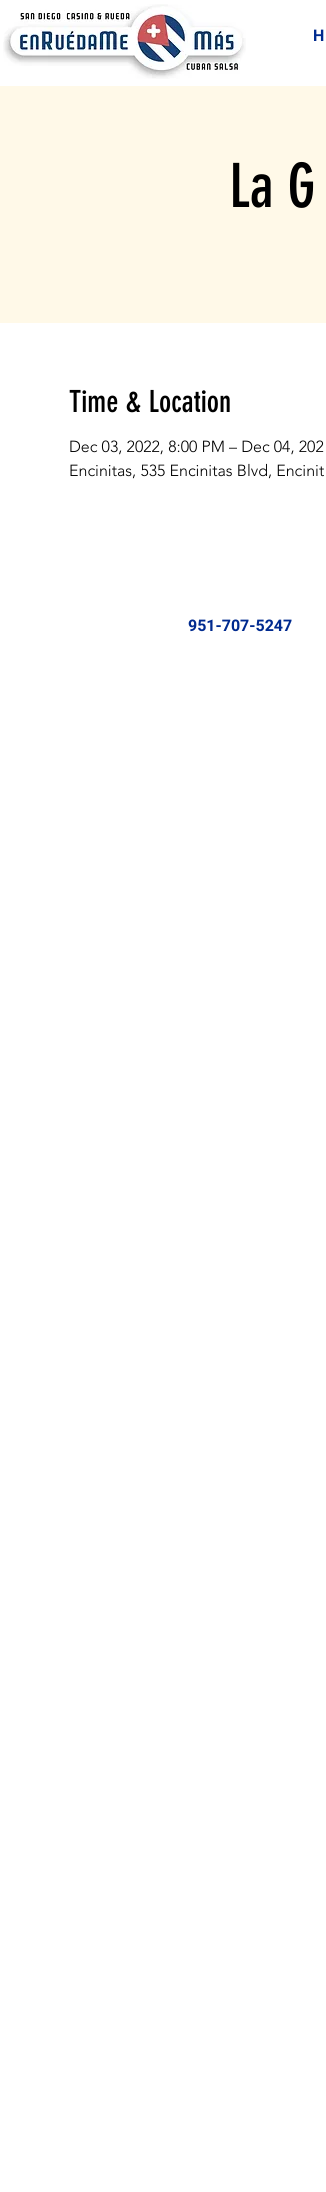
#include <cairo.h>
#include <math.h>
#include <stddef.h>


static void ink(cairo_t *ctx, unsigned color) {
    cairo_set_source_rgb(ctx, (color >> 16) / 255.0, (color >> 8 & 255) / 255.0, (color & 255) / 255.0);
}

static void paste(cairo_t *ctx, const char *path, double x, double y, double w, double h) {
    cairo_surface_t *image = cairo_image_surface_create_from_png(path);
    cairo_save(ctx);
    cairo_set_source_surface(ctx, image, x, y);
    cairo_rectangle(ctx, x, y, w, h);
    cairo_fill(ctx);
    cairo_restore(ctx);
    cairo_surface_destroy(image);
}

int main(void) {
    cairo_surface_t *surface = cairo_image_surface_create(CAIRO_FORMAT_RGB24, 326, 2192);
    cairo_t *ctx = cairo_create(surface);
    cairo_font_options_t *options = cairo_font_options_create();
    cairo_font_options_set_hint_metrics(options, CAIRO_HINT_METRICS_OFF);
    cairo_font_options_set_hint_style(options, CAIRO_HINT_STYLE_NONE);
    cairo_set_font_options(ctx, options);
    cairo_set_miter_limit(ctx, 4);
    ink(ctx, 0xFFFFFF);
    cairo_paint(ctx);
    paste(ctx, "media/1.png", 3, 4, 243, 75);
    cairo_select_font_face(ctx, "Roboto", CAIRO_FONT_SLANT_NORMAL, CAIRO_FONT_WEIGHT_BOLD);
    cairo_set_font_size(ctx, 16);
    ink(ctx, 0x002A8F);
    cairo_move_to(ctx, 313, 41);
    cairo_show_text(ctx, "H");
    ink(ctx, 0xFFF9E8);
    cairo_rectangle(ctx, 0, 86, 326, 237);
    cairo_fill(ctx);
    cairo_select_font_face(ctx, "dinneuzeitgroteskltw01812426", CAIRO_FONT_SLANT_NORMAL, CAIRO_FONT_WEIGHT_NORMAL);
    cairo_set_font_size(ctx, 60);
    ink(ctx, 0x000000);
    cairo_move_to(ctx, 229, 207);
    cairo_show_text(ctx, "La G");
    cairo_set_font_size(ctx, 30);
    cairo_move_to(ctx, 69, 412);
    cairo_show_text(ctx, "Time & Location");
    cairo_select_font_face(ctx, "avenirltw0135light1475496 Light", CAIRO_FONT_SLANT_NORMAL, CAIRO_FONT_WEIGHT_NORMAL);
    cairo_set_font_size(ctx, 16);
    cairo_move_to(ctx, 69, 452);
    cairo_show_text(ctx, "Dec 03, 2022, 8:00 PM – Dec 04, 202");
    cairo_move_to(ctx, 69, 476);
    cairo_show_text(ctx, "Encinitas, 535 Encinitas Blvd, Encinit");
    cairo_select_font_face(ctx, "Roboto", CAIRO_FONT_SLANT_NORMAL, CAIRO_FONT_WEIGHT_BOLD);
    ink(ctx, 0x002A8F);
    cairo_move_to(ctx, 188, 631);
    cairo_show_text(ctx, "951-707-5247");
    cairo_surface_write_to_png(surface, "image.png");
    cairo_font_options_destroy(options);
    cairo_destroy(ctx);
    cairo_surface_destroy(surface);
    return 0;
}
